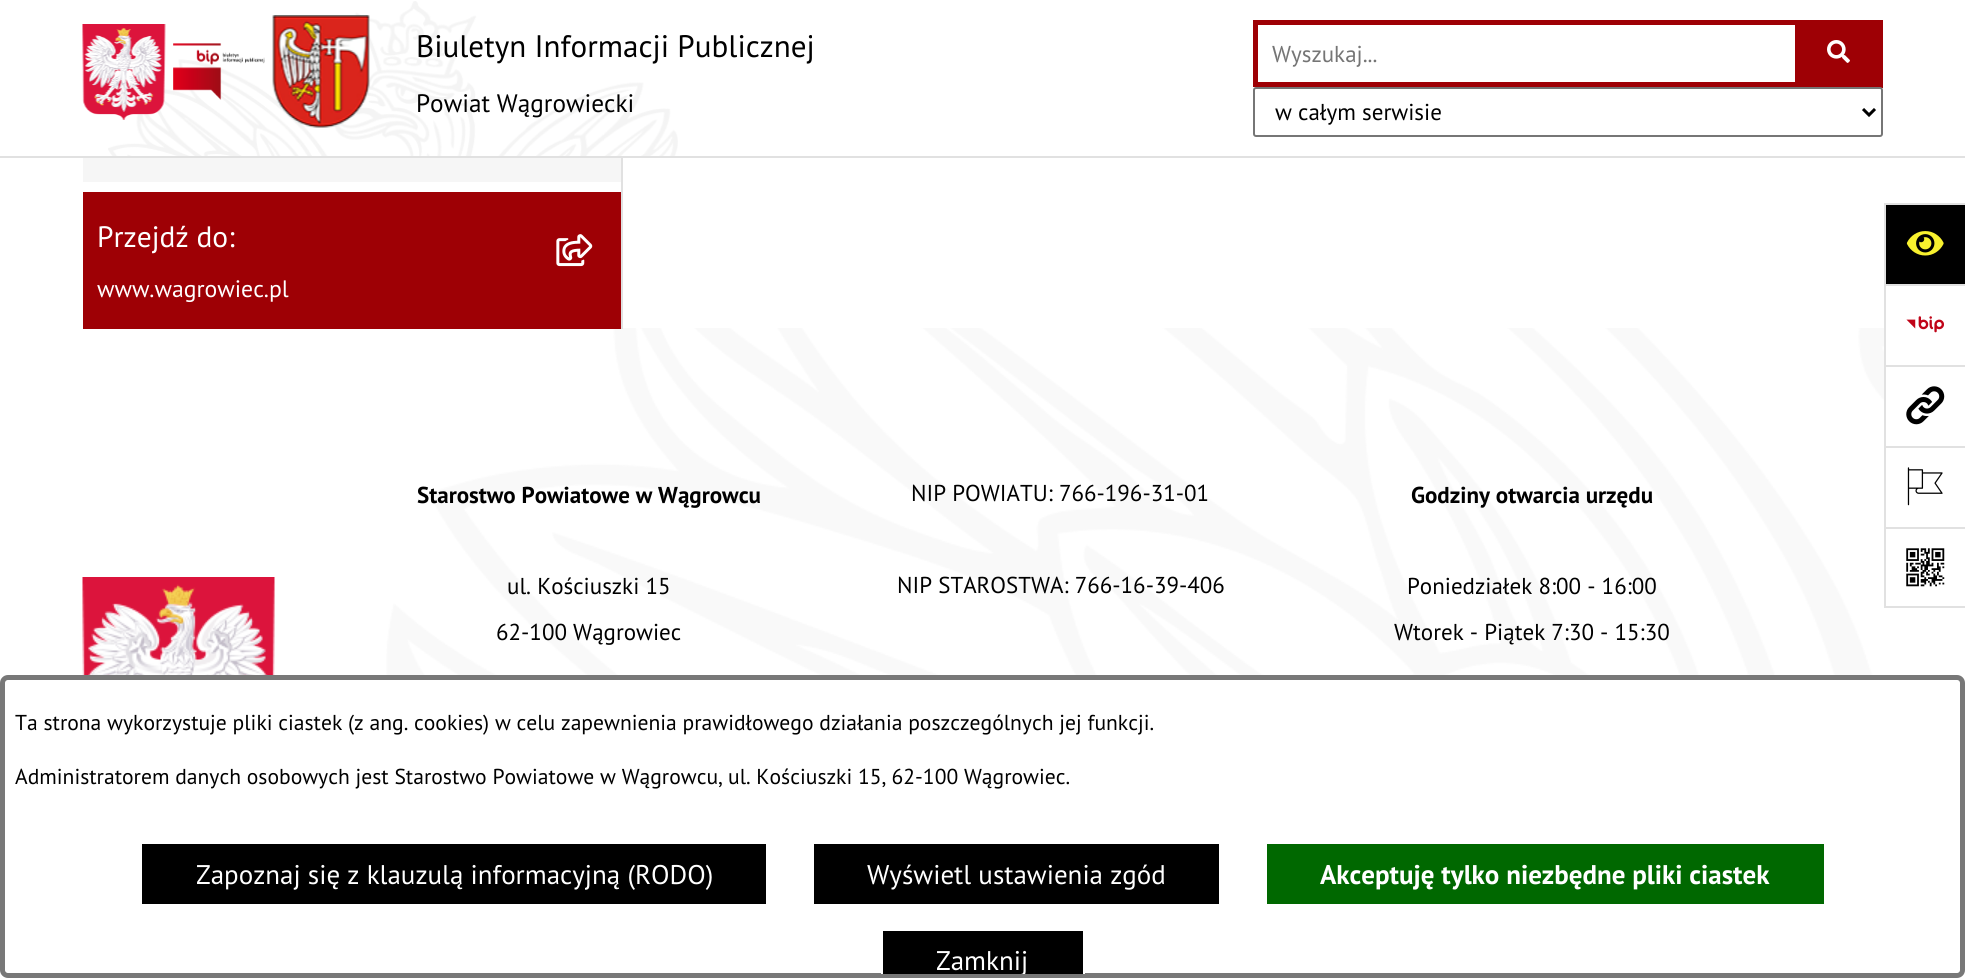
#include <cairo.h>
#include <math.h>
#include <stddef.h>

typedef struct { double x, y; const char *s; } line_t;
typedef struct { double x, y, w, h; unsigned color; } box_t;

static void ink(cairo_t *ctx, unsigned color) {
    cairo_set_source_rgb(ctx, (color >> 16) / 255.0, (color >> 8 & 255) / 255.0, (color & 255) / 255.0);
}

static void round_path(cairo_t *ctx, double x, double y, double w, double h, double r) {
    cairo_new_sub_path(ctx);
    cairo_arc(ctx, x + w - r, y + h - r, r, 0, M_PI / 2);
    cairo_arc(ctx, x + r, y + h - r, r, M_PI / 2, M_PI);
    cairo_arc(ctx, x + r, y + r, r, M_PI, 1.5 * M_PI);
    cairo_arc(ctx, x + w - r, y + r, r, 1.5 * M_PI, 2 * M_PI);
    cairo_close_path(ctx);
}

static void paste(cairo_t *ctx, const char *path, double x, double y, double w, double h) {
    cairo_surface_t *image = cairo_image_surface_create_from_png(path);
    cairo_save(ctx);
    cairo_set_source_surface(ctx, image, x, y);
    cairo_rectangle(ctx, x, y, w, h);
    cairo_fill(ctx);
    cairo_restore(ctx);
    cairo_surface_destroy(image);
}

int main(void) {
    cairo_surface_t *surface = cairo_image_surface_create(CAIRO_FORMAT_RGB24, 1965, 978);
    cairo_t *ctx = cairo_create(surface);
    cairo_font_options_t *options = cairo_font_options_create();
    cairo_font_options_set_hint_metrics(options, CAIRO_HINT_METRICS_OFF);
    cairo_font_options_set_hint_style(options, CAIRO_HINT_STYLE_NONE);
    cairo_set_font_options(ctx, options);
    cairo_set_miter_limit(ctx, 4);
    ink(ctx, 0xFFFFFF);
    cairo_paint(ctx);
    ink(ctx, 0xE1E1E1);
    cairo_rectangle(ctx, 0, 156, 1965, 2);
    cairo_fill(ctx);
    paste(ctx, "media/1.png", 108, 1, 570, 155);
    paste(ctx, "media/2.png", 82, 24, 84, 96);
    paste(ctx, "media/3.png", 173, 43, 92, 57);
    paste(ctx, "media/4.png", 272, 15, 98, 113);
    cairo_select_font_face(ctx, "PT Sans", CAIRO_FONT_SLANT_NORMAL, CAIRO_FONT_WEIGHT_NORMAL);
    cairo_set_font_size(ctx, 31.1);
    ink(ctx, 0x000000);
    cairo_move_to(ctx, 416, 57);
    cairo_show_text(ctx, "Biuletyn Informacji Publicznej");
    cairo_set_font_size(ctx, 25.25);
    cairo_move_to(ctx, 416, 112);
    cairo_show_text(ctx, "Powiat Wągrowiecki");
    cairo_rectangle(ctx, 1255.5, 22.5, 542, 62);
    ink(ctx, 0x9E0005);
    cairo_set_line_width(ctx, 5);
    cairo_stroke(ctx);
    cairo_set_font_size(ctx, 23);
    ink(ctx, 0x757575);
    cairo_move_to(ctx, 1272, 62);
    cairo_show_text(ctx, "Wyszukaj...");
    ink(ctx, 0x9E0005);
    cairo_rectangle(ctx, 1800, 20, 83, 68);
    cairo_fill(ctx);
    paste(ctx, "media/5.png", 1827, 40, 23, 23);
    ink(ctx, 0xFFFFFF);
    round_path(ctx, 1254, 88, 628, 48, 2);
    cairo_fill_preserve(ctx);
    ink(ctx, 0x767676);
    cairo_set_line_width(ctx, 2);
    cairo_stroke(ctx);
    cairo_new_path(ctx);
    cairo_move_to(ctx, 1863, 109);
    cairo_line_to(ctx, 1869, 115);
    cairo_line_to(ctx, 1875, 109);
    ink(ctx, 0x000000);
    cairo_set_line_width(ctx, 3);
    cairo_stroke(ctx);
    cairo_move_to(ctx, 1275, 120);
    cairo_show_text(ctx, "w całym serwisie");
    ink(ctx, 0xF6F6F6);
    cairo_rectangle(ctx, 83, 158, 538, 24);
    cairo_fill(ctx);
    paste(ctx, "media/12.png", 386, 328, 1498, 347);
    {
        static const box_t items[] = {
            {621, 158, 2, 171, 0xE1E1E1},
            {1886, 205, 79, 79, 0x000000},
            {1884, 203, 81, 2, 0xE1E1E1},
            {1884, 203, 2, 81, 0xE1E1E1},
        };
        for (size_t i = 0; i < sizeof items / sizeof *items; i++) {
            ink(ctx, items[i].color);
            cairo_rectangle(ctx, items[i].x, items[i].y, items[i].w, items[i].h);
            cairo_fill(ctx);
        }
    }
    paste(ctx, "media/6.png", 1906, 231, 38, 25);
    cairo_rectangle(ctx, 1884, 284, 81, 2);
    cairo_fill(ctx);
    cairo_rectangle(ctx, 1884, 284, 2, 81);
    cairo_fill(ctx);
    paste(ctx, "media/7.png", 1906, 316, 38, 17);
    cairo_rectangle(ctx, 1884, 365, 81, 2);
    cairo_fill(ctx);
    cairo_rectangle(ctx, 1884, 365, 2, 81);
    cairo_fill(ctx);
    paste(ctx, "media/8.png", 1906, 386, 39, 39);
    cairo_rectangle(ctx, 1884, 446, 81, 2);
    cairo_fill(ctx);
    cairo_rectangle(ctx, 1884, 446, 2, 81);
    cairo_fill(ctx);
    paste(ctx, "media/9.png", 1907, 467, 36, 39);
    {
        static const box_t items[] = {
            {1884, 527, 81, 2, 0xE1E1E1},
            {1884, 606, 81, 2, 0xE1E1E1},
            {1884, 527, 2, 81, 0xE1E1E1},
        };
        for (size_t i = 0; i < sizeof items / sizeof *items; i++) {
            ink(ctx, items[i].color);
            cairo_rectangle(ctx, items[i].x, items[i].y, items[i].w, items[i].h);
            cairo_fill(ctx);
        }
    }
    paste(ctx, "media/10.png", 1906, 548, 39, 39);
    ink(ctx, 0x9E0005);
    cairo_rectangle(ctx, 83, 192, 538, 137);
    cairo_fill(ctx);
    cairo_set_font_size(ctx, 29.5);
    ink(ctx, 0xFFFFFF);
    cairo_move_to(ctx, 97, 247);
    cairo_show_text(ctx, "Przejdź do:");
    paste(ctx, "media/11.png", 556, 234, 37, 33);
    cairo_set_font_size(ctx, 23.75);
    cairo_move_to(ctx, 97, 297);
    cairo_show_text(ctx, "www.wagrowiec.pl");
    paste(ctx, "media/13.png", 82, 577, 193, 98);
    cairo_select_font_face(ctx, "PT Sans", CAIRO_FONT_SLANT_NORMAL, CAIRO_FONT_WEIGHT_BOLD);
    cairo_set_font_size(ctx, 23);
    ink(ctx, 0x000000);
    cairo_move_to(ctx, 417, 503);
    cairo_show_text(ctx, "Starostwo Powiatowe w Wągrowcu");
    cairo_select_font_face(ctx, "PT Sans", CAIRO_FONT_SLANT_NORMAL, CAIRO_FONT_WEIGHT_NORMAL);
    {
        static const line_t items[] = {
            {507, 594, "ul. Kościuszki 15"},
            {496, 640, "62-100 Wągrowiec"},
            {911, 501, "NIP POWIATU: 766-196-31-01"},
            {897, 593, "NIP STAROSTWA: 766-16-39-406"},
        };
        for (size_t i = 0; i < sizeof items / sizeof *items; i++) {
            cairo_move_to(ctx, items[i].x, items[i].y);
            cairo_show_text(ctx, items[i].s);
        }
    }
    cairo_select_font_face(ctx, "PT Sans", CAIRO_FONT_SLANT_NORMAL, CAIRO_FONT_WEIGHT_BOLD);
    cairo_move_to(ctx, 1411, 503);
    cairo_show_text(ctx, "Godziny otwarcia urzędu");
    cairo_select_font_face(ctx, "PT Sans", CAIRO_FONT_SLANT_NORMAL, CAIRO_FONT_WEIGHT_NORMAL);
    cairo_move_to(ctx, 1407, 594);
    cairo_show_text(ctx, "Poniedziałek 8:00 - 16:00");
    cairo_move_to(ctx, 1394, 640);
    cairo_show_text(ctx, "Wtorek - Piątek 7:30 - 15:30");
    round_path(ctx, 2.5, 677.5, 1960, 298, 5.5);
    ink(ctx, 0x787878);
    cairo_set_line_width(ctx, 5);
    cairo_stroke(ctx);
    cairo_set_font_size(ctx, 21.6);
    ink(ctx, 0x000000);
    cairo_move_to(ctx, 15, 730);
    cairo_show_text(ctx, "Ta strona wykorzystuje pliki ciastek (z ang. cookies) w celu zapewnienia prawidłowego działania poszczególnych jej funkcji.");
    cairo_move_to(ctx, 15, 784);
    cairo_show_text(ctx, "Administratorem danych osobowych jest Starostwo Powiatowe w Wągrowcu, ul. Kościuszki 15, 62-100 Wągrowiec.");
    cairo_rectangle(ctx, 142, 844, 624, 60);
    cairo_fill(ctx);
    cairo_set_font_size(ctx, 27);
    ink(ctx, 0xFFFFFF);
    cairo_move_to(ctx, 196, 884);
    cairo_show_text(ctx, "Zapoznaj się z klauzulą informacyjną (RODO)");
    ink(ctx, 0x000000);
    cairo_rectangle(ctx, 814, 844, 405, 60);
    cairo_fill(ctx);
    ink(ctx, 0xFFFFFF);
    cairo_move_to(ctx, 867, 884);
    cairo_show_text(ctx, "Wyświetl ustawienia zgód");
    ink(ctx, 0x006800);
    cairo_rectangle(ctx, 1267, 844, 557, 60);
    cairo_fill(ctx);
    cairo_select_font_face(ctx, "PT Sans", CAIRO_FONT_SLANT_NORMAL, CAIRO_FONT_WEIGHT_BOLD);
    ink(ctx, 0xFFFFFF);
    cairo_move_to(ctx, 1320, 884);
    cairo_show_text(ctx, "Akceptuję tylko niezbędne pliki ciastek");
    ink(ctx, 0x000000);
    cairo_rectangle(ctx, 883, 931, 200, 43);
    cairo_fill(ctx);
    ink(ctx, 0xFFFFFF);
    cairo_new_path(ctx);
    cairo_move_to(ctx, 881, 929);
    cairo_line_to(ctx, 881, 974);
    cairo_line_to(ctx, 883, 974);
    cairo_line_to(ctx, 883, 931);
    cairo_line_to(ctx, 1083, 931);
    cairo_line_to(ctx, 1083, 974);
    cairo_line_to(ctx, 1085, 974);
    cairo_line_to(ctx, 1085, 929);
    cairo_close_path(ctx);
    cairo_fill(ctx);
    cairo_save(ctx);
    round_path(ctx, 5, 680, 1956, 294, 3);
    cairo_clip(ctx);
    cairo_select_font_face(ctx, "PT Sans", CAIRO_FONT_SLANT_NORMAL, CAIRO_FONT_WEIGHT_NORMAL);
    cairo_move_to(ctx, 936, 970);
    cairo_show_text(ctx, "Zamknij");
    cairo_restore(ctx);
    cairo_surface_write_to_png(surface, "image.png");
    cairo_font_options_destroy(options);
    cairo_destroy(ctx);
    cairo_surface_destroy(surface);
    return 0;
}
